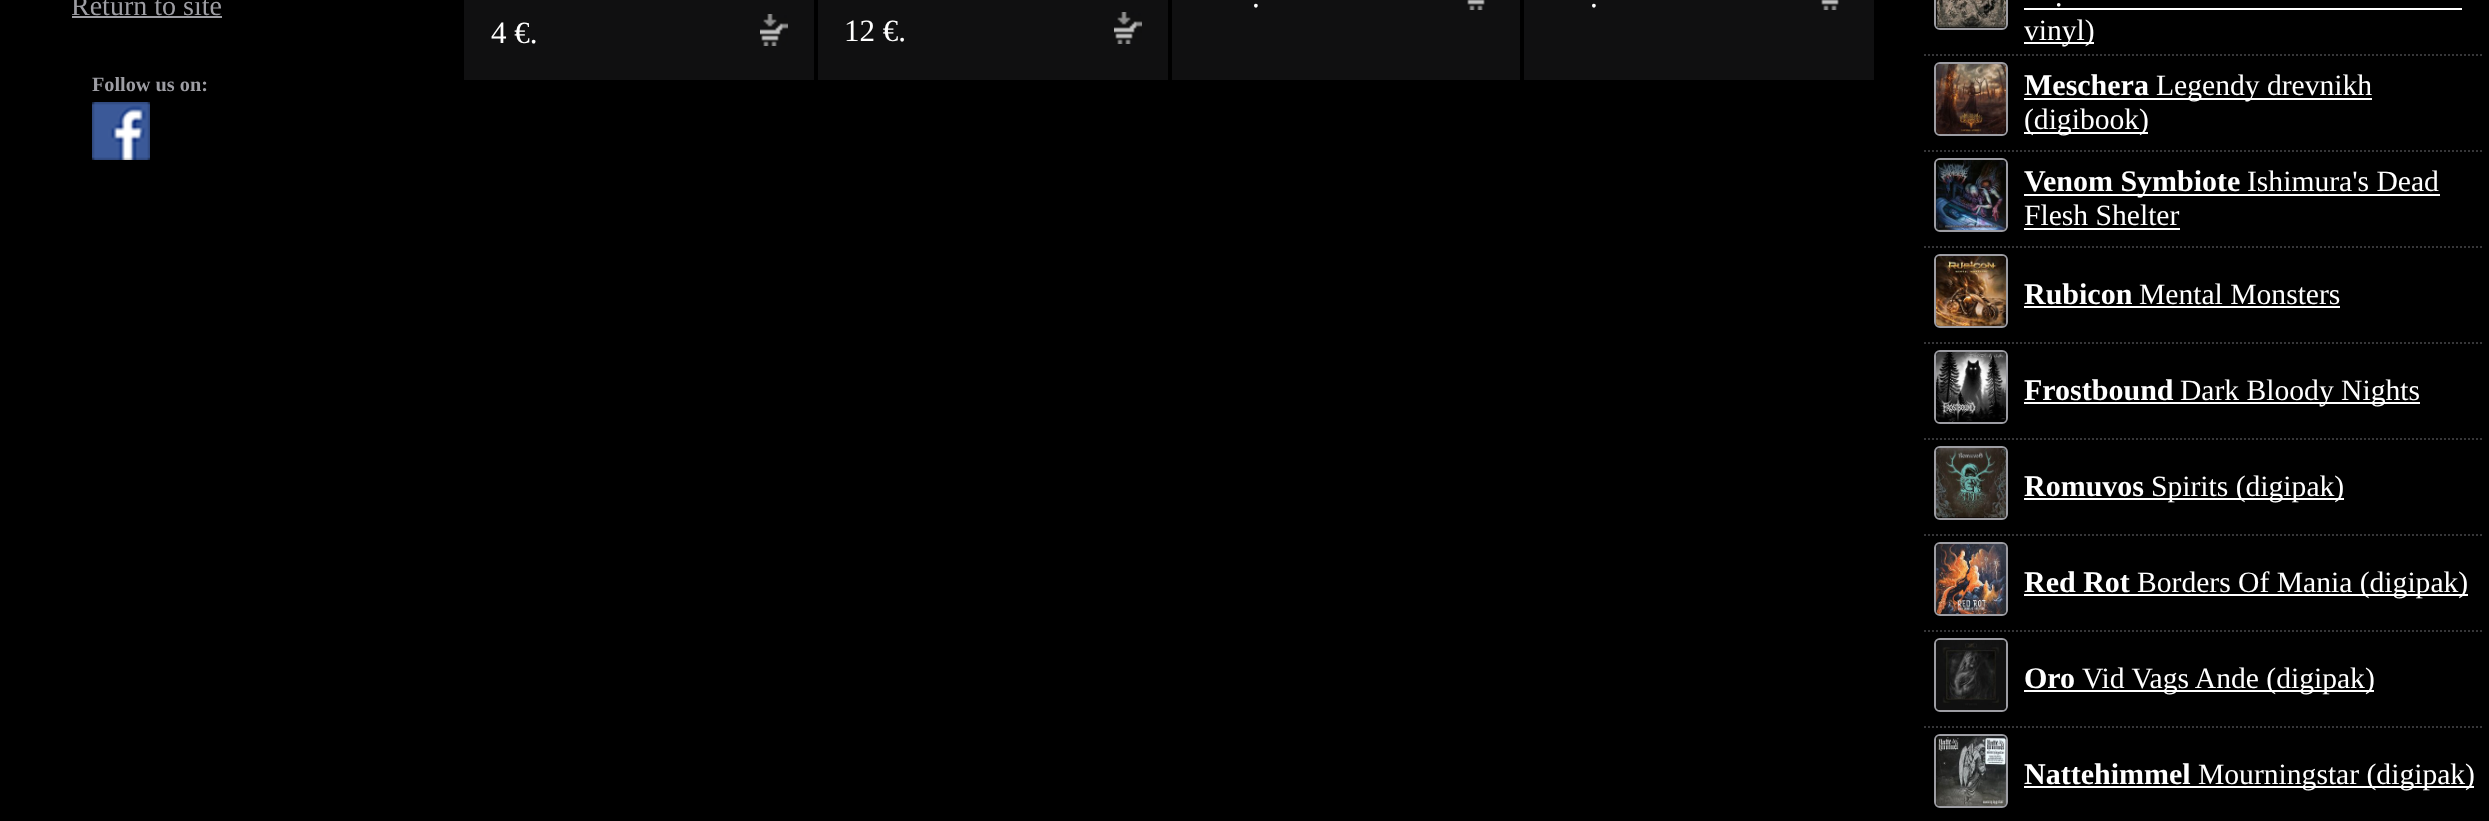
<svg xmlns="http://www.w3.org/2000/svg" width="2489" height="821">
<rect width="100%" height="100%" fill="#000"/>
<text x="71" y="15" style="font-family:Liberation Serif;font-size:28px;fill:#9d9da3">Return to site</text>
<rect x="72" y="16" width="150" height="2" fill="#9d9da3"/>
<text x="92" y="91" style="font-family:Liberation Serif;font-size:20.25px;font-weight:bold;fill:#9d9da3">Follow us on:</text>
<image x="92" y="102" width="58" height="58" href="media/1.png"/>
<rect x="1172" width="348" height="80" fill="#101011"/>
<text x="1252" y="7" style="font-family:Liberation Serif;font-size:31px;fill:#fff">.</text>
<image x="1467" y="0" width="18" height="10" href="media/2.png"/>
<rect x="1524" width="350" height="80" fill="#101011"/>
<text x="1590" y="7" style="font-family:Liberation Serif;font-size:31px;fill:#fff">.</text>
<image x="1821" y="0" width="18" height="10" href="media/2.png"/>
<rect x="464" width="350" height="80" fill="#101011"/>
<text x="491" y="43" style="font-family:Liberation Serif;font-size:31px;fill:#fff">4 €.</text>
<image x="760" y="14" width="28" height="32" href="media/3.png"/>
<rect x="818" width="350" height="80" fill="#101011"/>
<text x="844" y="41" style="font-family:Liberation Serif;font-size:31px;fill:#fff">12 €.</text>
<image x="1114" y="12" width="28" height="32" href="media/3.png"/>
<path d="M1924 55h560" fill="none" stroke="#363638" stroke-width="2" stroke-dasharray="2 2"/>
<rect x="1935" y="-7" width="72" height="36" rx="5" fill="none" stroke="#9d9da3" stroke-width="2"/>
<image x="1936" y="0" width="70" height="28" href="media/4.png"/>
<text x="2055" y="6" style="font-family:Liberation Serif;font-size:29.6px;fill:#fff">.</text>
<rect x="2024" y="8" width="438" height="2" fill="#fff"/>
<rect x="2024" y="42" width="70" height="2" fill="#fff"/>
<text x="2024" y="40" style="font-family:Liberation Serif;font-size:29.6px;fill:#fff">vinyl)</text>
<path d="M1924 151h560" fill="none" stroke="#363638" stroke-width="2" stroke-dasharray="2 2"/>
<rect x="1935" y="63" width="72" height="72" rx="5" fill="none" stroke="#9d9da3" stroke-width="2"/>
<image x="1936" y="64" width="70" height="70" href="media/5.png"/>
<text x="2024" y="95" style="font-family:Liberation Serif;font-size:30px;font-weight:bold;fill:#fff">Meschera</text>
<rect x="2024" y="98" width="348" height="2" fill="#fff"/>
<text x="2156" y="95" style="font-family:Liberation Serif;font-size:29.6px;fill:#fff">Legendy drevnikh</text>
<rect x="2024" y="132" width="124" height="2" fill="#fff"/>
<text x="2024" y="129" style="font-family:Liberation Serif;font-size:29.6px;fill:#fff">(digibook)</text>
<path d="M1924 247h560" fill="none" stroke="#363638" stroke-width="2" stroke-dasharray="2 2"/>
<rect x="1935" y="159" width="72" height="72" rx="5" fill="none" stroke="#9d9da3" stroke-width="2"/>
<image x="1936" y="160" width="70" height="70" href="media/6.png"/>
<rect x="2024" y="194" width="416" height="2" fill="#fff"/>
<text x="2024" y="191" style="font-family:Liberation Serif;font-size:30px;font-weight:bold;fill:#fff">Venom Symbiote</text>
<text x="2247" y="191" style="font-family:Liberation Serif;font-size:29.6px;fill:#fff">Ishimura's Dead</text>
<text x="2024" y="225" style="font-family:Liberation Serif;font-size:29.6px;fill:#fff">Flesh Shelter</text>
<rect x="2024" y="228" width="156" height="2" fill="#fff"/>
<path d="M1924 343h560" fill="none" stroke="#363638" stroke-width="2" stroke-dasharray="2 2"/>
<rect x="1935" y="255" width="72" height="72" rx="5" fill="none" stroke="#9d9da3" stroke-width="2"/>
<image x="1936" y="256" width="70" height="70" href="media/7.png"/>
<text x="2024" y="304" style="font-family:Liberation Serif;font-size:30px;font-weight:bold;fill:#fff">Rubicon</text>
<rect x="2024" y="306" width="316" height="2" fill="#fff"/>
<text x="2139" y="304" style="font-family:Liberation Serif;font-size:29.6px;fill:#fff">Mental Monsters</text>
<path d="M1924 439h560" fill="none" stroke="#363638" stroke-width="2" stroke-dasharray="2 2"/>
<rect x="1935" y="351" width="72" height="72" rx="5" fill="none" stroke="#9d9da3" stroke-width="2"/>
<image x="1936" y="352" width="70" height="70" href="media/8.png"/>
<text x="2024" y="400" style="font-family:Liberation Serif;font-size:30px;font-weight:bold;fill:#fff">Frostbound</text>
<rect x="2024" y="402" width="396" height="2" fill="#fff"/>
<text x="2180" y="400" style="font-family:Liberation Serif;font-size:29.6px;fill:#fff">Dark Bloody Nights</text>
<path d="M1924 535h560" fill="none" stroke="#363638" stroke-width="2" stroke-dasharray="2 2"/>
<rect x="1935" y="447" width="72" height="72" rx="5" fill="none" stroke="#9d9da3" stroke-width="2"/>
<image x="1936" y="448" width="70" height="70" href="media/9.png"/>
<text x="2024" y="496" style="font-family:Liberation Serif;font-size:30px;font-weight:bold;fill:#fff">Romuvos</text>
<rect x="2024" y="498" width="320" height="2" fill="#fff"/>
<text x="2151" y="496" style="font-family:Liberation Serif;font-size:29.6px;fill:#fff">Spirits (digipak)</text>
<path d="M1924 631h560" fill="none" stroke="#363638" stroke-width="2" stroke-dasharray="2 2"/>
<rect x="1935" y="543" width="72" height="72" rx="5" fill="none" stroke="#9d9da3" stroke-width="2"/>
<image x="1936" y="544" width="70" height="70" href="media/10.png"/>
<text x="2024" y="592" style="font-family:Liberation Serif;font-size:30px;font-weight:bold;fill:#fff">Red Rot</text>
<rect x="2024" y="594" width="444" height="2" fill="#fff"/>
<text x="2137" y="592" style="font-family:Liberation Serif;font-size:29.6px;fill:#fff">Borders Of Mania (digipak)</text>
<path d="M1924 727h560" fill="none" stroke="#363638" stroke-width="2" stroke-dasharray="2 2"/>
<rect x="1935" y="639" width="72" height="72" rx="5" fill="none" stroke="#9d9da3" stroke-width="2"/>
<image x="1936" y="640" width="70" height="70" href="media/11.png"/>
<text x="2024" y="688" style="font-family:Liberation Serif;font-size:30px;font-weight:bold;fill:#fff">Oro</text>
<rect x="2024" y="690" width="350" height="2" fill="#fff"/>
<text x="2082" y="688" style="font-family:Liberation Serif;font-size:29.6px;fill:#fff">Vid Vags Ande (digipak)</text>
<rect x="1935" y="735" width="72" height="72" rx="5" fill="none" stroke="#9d9da3" stroke-width="2"/>
<image x="1936" y="736" width="70" height="70" href="media/12.png"/>
<text x="2024" y="784" style="font-family:Liberation Serif;font-size:30px;font-weight:bold;fill:#fff">Nattehimmel</text>
<rect x="2024" y="786" width="450" height="2" fill="#fff"/>
<text x="2198" y="784" style="font-family:Liberation Serif;font-size:29.6px;fill:#fff">Mourningstar (digipak)</text>
</svg>
